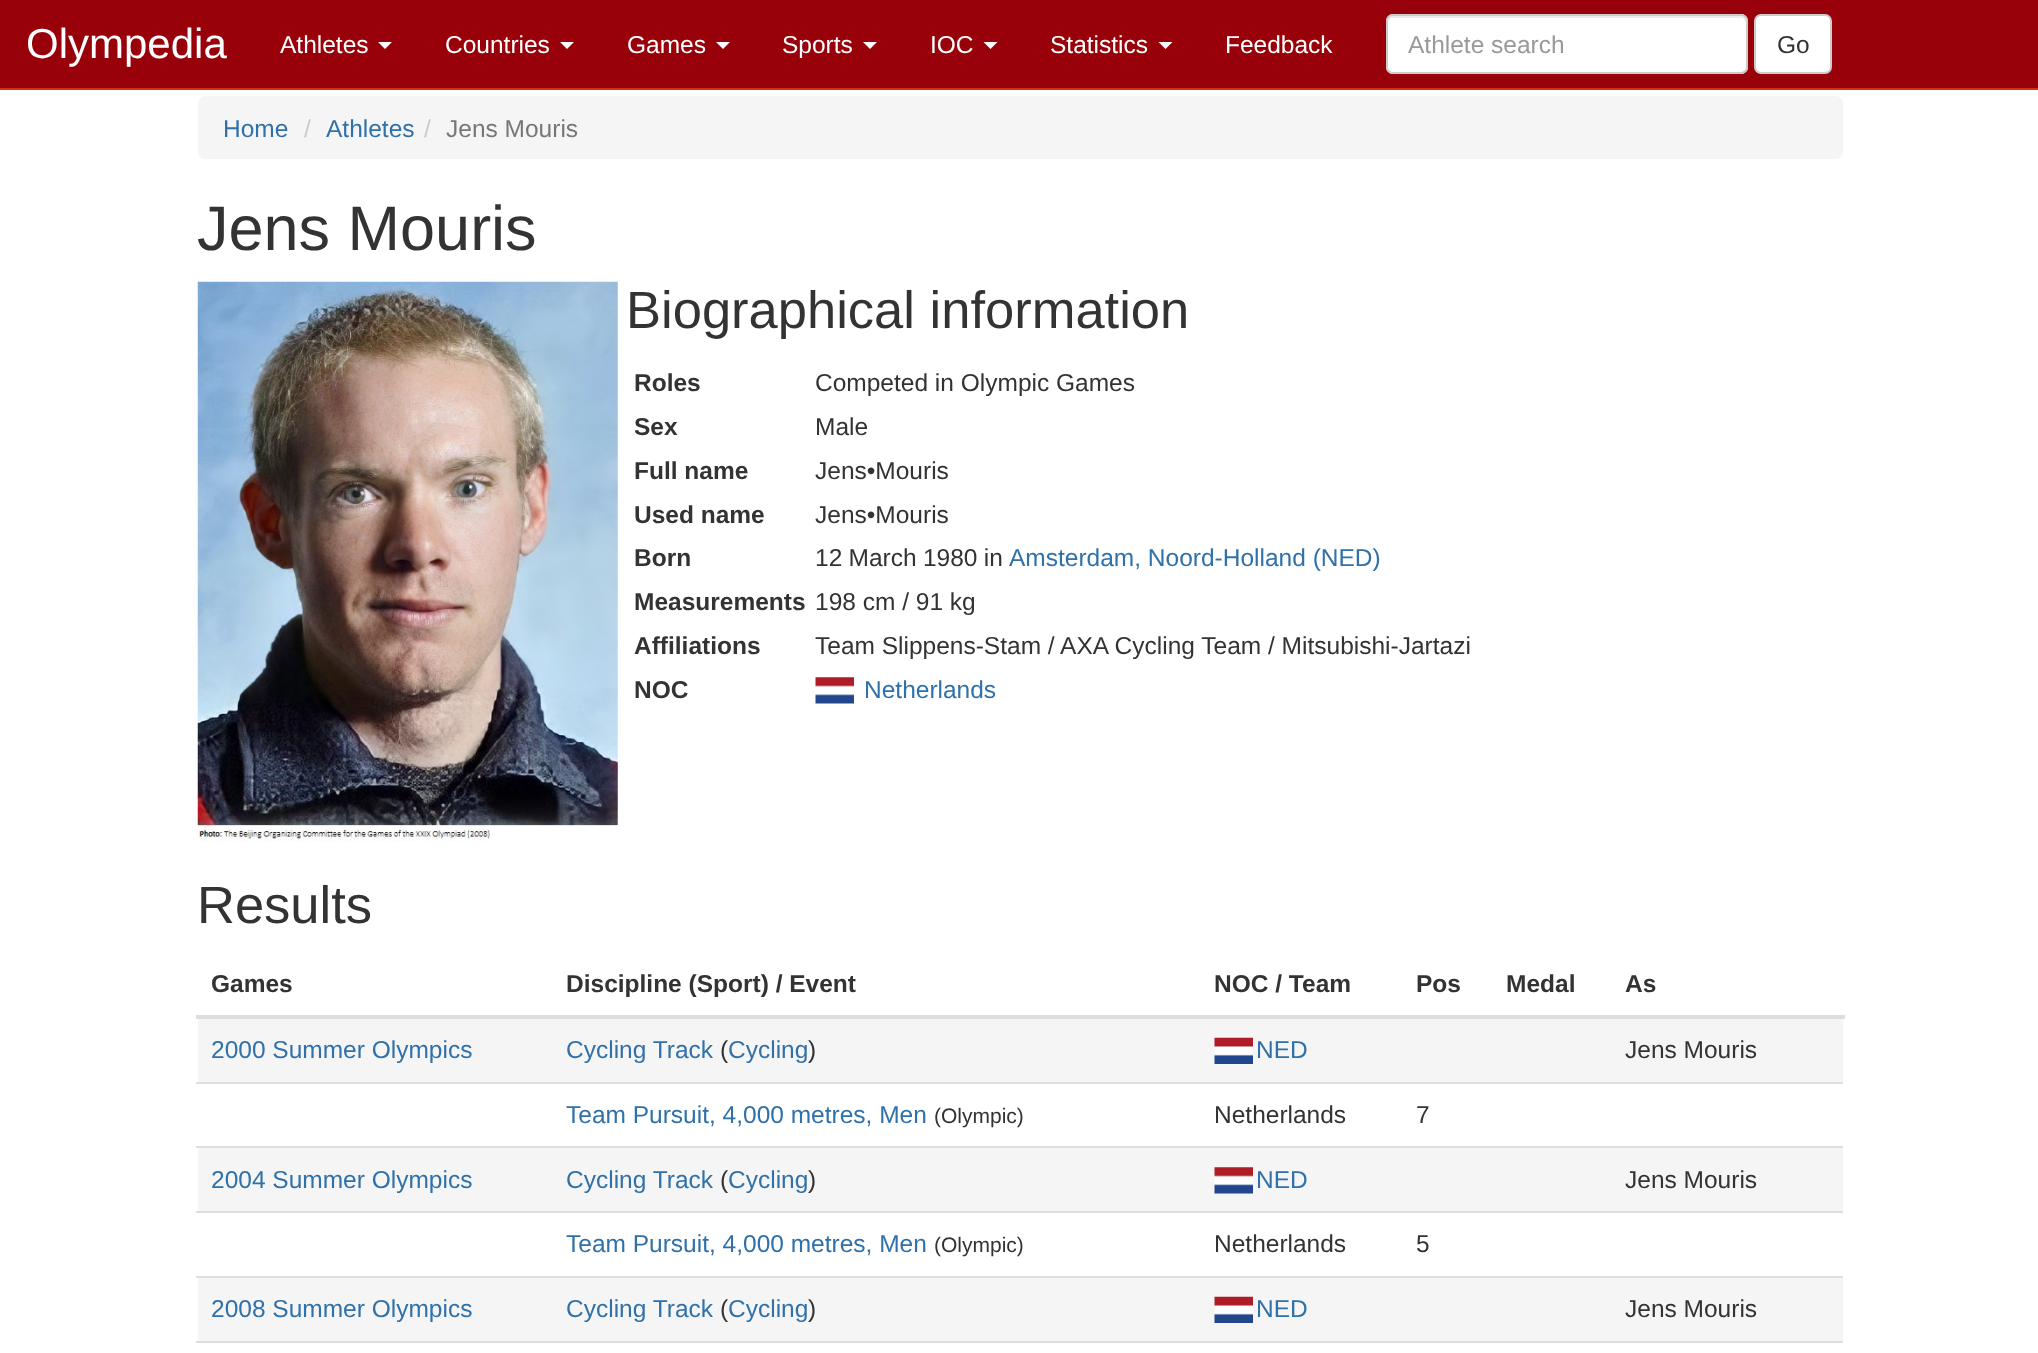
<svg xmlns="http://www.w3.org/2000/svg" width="2038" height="1353">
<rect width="100%" height="100%" fill="#fff"/>
<rect width="2038" height="88" fill="#98010a"/>
<rect y="88" width="2038" height="2" fill="#cc3314"/>
<text x="26" y="58" style="font-family:Liberation Sans;font-size:42px;fill:#fff">Olympedia</text>
<text x="280" y="53" style="font-family:Liberation Sans;font-size:24.5px;fill:#fff">Athletes</text>
<path d="M378 42h14l-7 7z" fill="#fff"/>
<text x="445" y="53" style="font-family:Liberation Sans;font-size:24.5px;fill:#fff">Countries</text>
<path d="M560 42h14l-7 7z" fill="#fff"/>
<text x="627" y="53" style="font-family:Liberation Sans;font-size:24.5px;fill:#fff">Games</text>
<path d="M716 42h14l-7 7z" fill="#fff"/>
<text x="782" y="53" style="font-family:Liberation Sans;font-size:24.5px;fill:#fff">Sports</text>
<path d="M863 42h14l-7 7z" fill="#fff"/>
<text x="930" y="53" style="font-family:Liberation Sans;font-size:24.5px;fill:#fff">IOC</text>
<path d="M983.5 42h14l-7 7z" fill="#fff"/>
<text x="1050" y="53" style="font-family:Liberation Sans;font-size:24.5px;fill:#fff">Statistics</text>
<path d="M1158.5 42h14l-7 7z" fill="#fff"/>
<text x="1225" y="53" style="font-family:Liberation Sans;font-size:24.5px;fill:#fff">Feedback</text>
<rect x="1386" y="14" width="362" height="60" rx="7" fill="#fff"/>
<path d="M1393 18h348c3 0 5 2 5 5v45v3c0-1 1-3 1-4v-46c0-3-2-5-5-5h-349c-3 0-5 2-5 5v2c0-3 2-5 5-5z" fill="#ececec"/>
<rect x="1387" y="15" width="360" height="58" rx="6" fill="none" stroke="#ccc" stroke-width="2"/>
<text x="1408" y="53" style="font-family:Liberation Sans;font-size:24.5px;fill:#999">Athlete search</text>
<rect x="1755" y="15" width="76" height="58" rx="6" fill="#fff" stroke="#ccc" stroke-width="2"/>
<text x="1777" y="53" style="font-family:Liberation Sans;font-size:24.5px;fill:#333">Go</text>
<rect x="198" y="96" width="1645" height="63" rx="7" fill="#f5f5f5"/>
<text x="223" y="137" style="font-family:Liberation Sans;font-size:24.5px;fill:#3071a9">Home</text>
<text x="304" y="137" style="font-family:Liberation Sans;font-size:24.5px;fill:#ccc">/</text>
<text x="326" y="137" style="font-family:Liberation Sans;font-size:24.5px;fill:#3071a9">Athletes</text>
<text x="424" y="137" style="font-family:Liberation Sans;font-size:24.5px;fill:#ccc">/</text>
<text x="446" y="137" style="font-family:Liberation Sans;font-size:24.5px;fill:#777">Jens Mouris</text>
<text x="197" y="250" style="font-family:Liberation Sans;font-size:63px;fill:#333">Jens Mouris</text>
<image x="197" y="281" width="421" height="561" href="media/1.png"/>
<text x="626" y="328" style="font-family:Liberation Sans;font-size:52.5px;fill:#333">Biographical information</text>
<text x="634" y="391" style="font-family:Liberation Sans;font-size:24.5px;font-weight:bold;fill:#333">Roles</text>
<text x="815" y="391" style="font-family:Liberation Sans;font-size:24.5px;fill:#333">Competed in Olympic Games</text>
<text x="634" y="435" style="font-family:Liberation Sans;font-size:24.5px;font-weight:bold;fill:#333">Sex</text>
<text x="815" y="435" style="font-family:Liberation Sans;font-size:24.5px;fill:#333">Male</text>
<text x="634" y="479" style="font-family:Liberation Sans;font-size:24.5px;font-weight:bold;fill:#333">Full name</text>
<text x="815" y="479" style="font-family:Liberation Sans;font-size:24.5px;fill:#333">Jens•Mouris</text>
<text x="634" y="523" style="font-family:Liberation Sans;font-size:24.5px;font-weight:bold;fill:#333">Used name</text>
<text x="815" y="523" style="font-family:Liberation Sans;font-size:24.5px;fill:#333">Jens•Mouris</text>
<text x="634" y="566" style="font-family:Liberation Sans;font-size:24.5px;font-weight:bold;fill:#333">Born</text>
<text x="815" y="566" word-spacing="-0.5" style="font-family:Liberation Sans;font-size:24.5px;fill:#333">12 March 1980 in</text>
<text x="1009" y="566" style="font-family:Liberation Sans;font-size:24.5px;fill:#3071a9">Amsterdam, Noord-Holland (NED)</text>
<text x="634" y="610" style="font-family:Liberation Sans;font-size:24.5px;font-weight:bold;fill:#333">Measurements</text>
<text x="815" y="610" style="font-family:Liberation Sans;font-size:24.5px;fill:#333">198 cm / 91 kg</text>
<text x="634" y="654" style="font-family:Liberation Sans;font-size:24.5px;font-weight:bold;fill:#333">Affiliations</text>
<text x="815" y="654" style="font-family:Liberation Sans;font-size:24.5px;fill:#333">Team Slippens-Stam / AXA Cycling Team / Mitsubishi-Jartazi</text>
<text x="634" y="698" style="font-family:Liberation Sans;font-size:24.5px;font-weight:bold;fill:#333">NOC</text>
<image x="815" y="677" width="39" height="27" href="media/2.png"/>
<text x="864" y="698" style="font-family:Liberation Sans;font-size:24.5px;fill:#3071a9">Netherlands</text>
<text x="197" y="923" style="font-family:Liberation Sans;font-size:52.5px;fill:#333">Results</text>
<text x="211" y="992" style="font-family:Liberation Sans;font-size:24.5px;font-weight:bold;fill:#333">Games</text>
<text x="566" y="992" style="font-family:Liberation Sans;font-size:24.5px;font-weight:bold;fill:#333">Discipline (Sport) / Event</text>
<text x="1214" y="992" style="font-family:Liberation Sans;font-size:24.5px;font-weight:bold;fill:#333">NOC / Team</text>
<text x="1416" y="992" style="font-family:Liberation Sans;font-size:24.5px;font-weight:bold;fill:#333">Pos</text>
<text x="1506" y="992" style="font-family:Liberation Sans;font-size:24.5px;font-weight:bold;fill:#333">Medal</text>
<text x="1625" y="992" style="font-family:Liberation Sans;font-size:24.5px;font-weight:bold;fill:#333">As</text>
<rect x="196" y="1015" width="1649" height="4" fill="#ddd"/>
<rect x="198" y="1019" width="1645" height="63" fill="#f5f5f5"/>
<text x="211" y="1058" style="font-family:Liberation Sans;font-size:24.5px;fill:#3071a9">2000 Summer Olympics</text>
<text x="566" y="1058" style="font-family:Liberation Sans;font-size:24.5px;fill:#3071a9">Cycling Track</text>
<text x="720" y="1058" style="font-family:Liberation Sans;font-size:24.5px;fill:#333">(</text>
<text x="728" y="1058" style="font-family:Liberation Sans;font-size:24.5px;fill:#3071a9">Cycling</text>
<text x="808" y="1058" style="font-family:Liberation Sans;font-size:24.5px;fill:#333">)</text>
<image x="1214" y="1037" width="39" height="27" href="media/3.png"/>
<text x="1256" y="1058" style="font-family:Liberation Sans;font-size:24.5px;fill:#3071a9">NED</text>
<text x="1625" y="1058" style="font-family:Liberation Sans;font-size:24.5px;fill:#333">Jens Mouris</text>
<rect x="196" y="1082" width="1647" height="2" fill="#ddd"/>
<text x="566" y="1123" style="font-family:Liberation Sans;font-size:24.5px;fill:#3071a9">Team Pursuit, 4,000 metres, Men</text>
<text x="934" y="1123" style="font-family:Liberation Sans;font-size:21px;fill:#333">(Olympic)</text>
<text x="1214" y="1123" style="font-family:Liberation Sans;font-size:24.5px;fill:#333">Netherlands</text>
<text x="1416" y="1123" style="font-family:Liberation Sans;font-size:24.5px;fill:#333">7</text>
<rect x="196" y="1146" width="1647" height="2" fill="#ddd"/>
<rect x="198" y="1148" width="1645" height="63" fill="#f5f5f5"/>
<text x="211" y="1188" style="font-family:Liberation Sans;font-size:24.5px;fill:#3071a9">2004 Summer Olympics</text>
<text x="566" y="1188" style="font-family:Liberation Sans;font-size:24.5px;fill:#3071a9">Cycling Track</text>
<text x="720" y="1188" style="font-family:Liberation Sans;font-size:24.5px;fill:#333">(</text>
<text x="728" y="1188" style="font-family:Liberation Sans;font-size:24.5px;fill:#3071a9">Cycling</text>
<text x="808" y="1188" style="font-family:Liberation Sans;font-size:24.5px;fill:#333">)</text>
<image x="1214" y="1167" width="39" height="27" href="media/4.png"/>
<text x="1256" y="1188" style="font-family:Liberation Sans;font-size:24.5px;fill:#3071a9">NED</text>
<text x="1625" y="1188" style="font-family:Liberation Sans;font-size:24.5px;fill:#333">Jens Mouris</text>
<rect x="196" y="1211" width="1647" height="2" fill="#ddd"/>
<text x="566" y="1252" style="font-family:Liberation Sans;font-size:24.5px;fill:#3071a9">Team Pursuit, 4,000 metres, Men</text>
<text x="934" y="1252" style="font-family:Liberation Sans;font-size:21px;fill:#333">(Olympic)</text>
<text x="1214" y="1252" style="font-family:Liberation Sans;font-size:24.5px;fill:#333">Netherlands</text>
<text x="1416" y="1252" style="font-family:Liberation Sans;font-size:24.5px;fill:#333">5</text>
<rect x="196" y="1276" width="1647" height="2" fill="#ddd"/>
<rect x="198" y="1278" width="1645" height="63" fill="#f5f5f5"/>
<text x="211" y="1317" style="font-family:Liberation Sans;font-size:24.5px;fill:#3071a9">2008 Summer Olympics</text>
<text x="566" y="1317" style="font-family:Liberation Sans;font-size:24.5px;fill:#3071a9">Cycling Track</text>
<text x="720" y="1317" style="font-family:Liberation Sans;font-size:24.5px;fill:#333">(</text>
<text x="728" y="1317" style="font-family:Liberation Sans;font-size:24.5px;fill:#3071a9">Cycling</text>
<text x="808" y="1317" style="font-family:Liberation Sans;font-size:24.5px;fill:#333">)</text>
<image x="1214" y="1296" width="39" height="27" href="media/3.png"/>
<text x="1256" y="1317" style="font-family:Liberation Sans;font-size:24.5px;fill:#3071a9">NED</text>
<text x="1625" y="1317" style="font-family:Liberation Sans;font-size:24.5px;fill:#333">Jens Mouris</text>
<rect x="196" y="1341" width="1647" height="2" fill="#ddd"/>
</svg>
